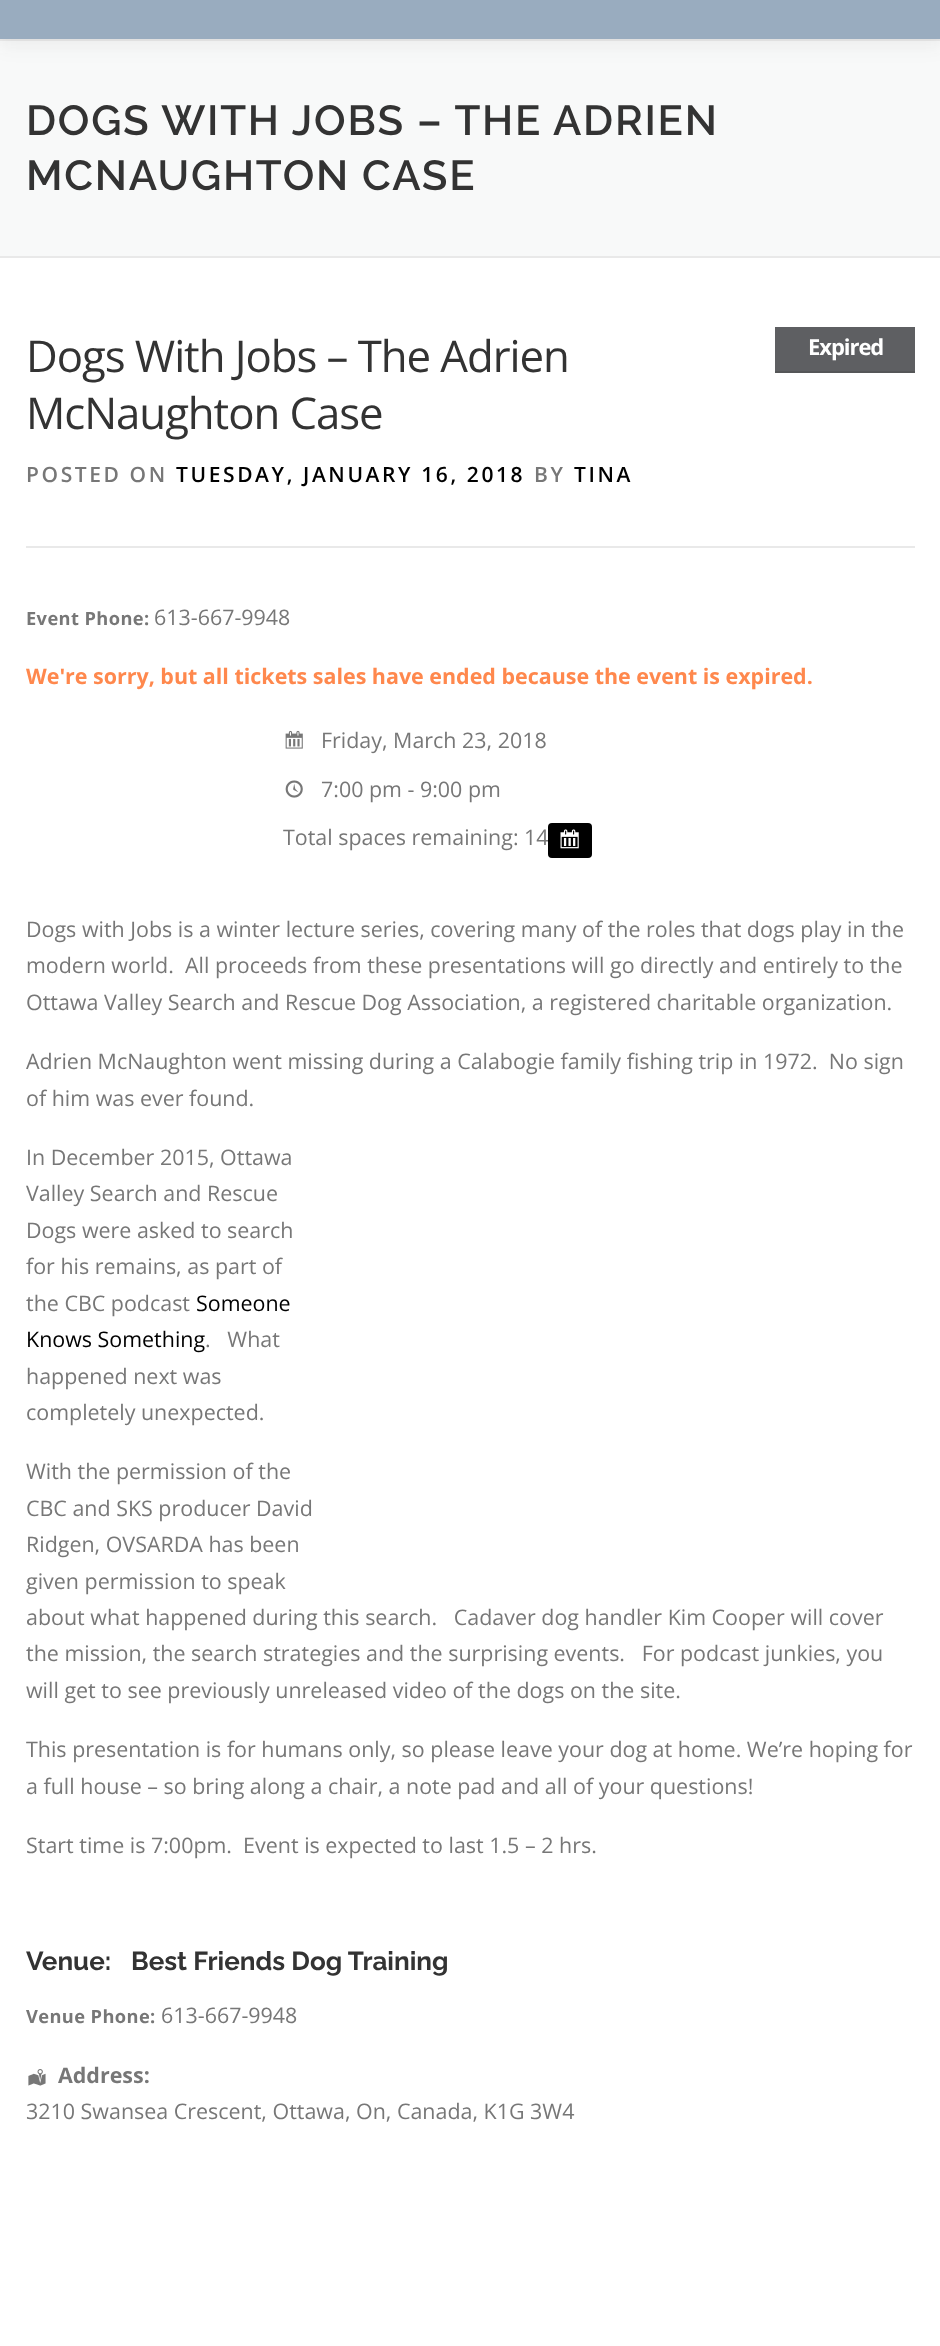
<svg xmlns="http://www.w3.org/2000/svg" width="940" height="2346">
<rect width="100%" height="100%" fill="#fff"/>
<rect y="41" width="940" height="215" fill="#f8f9f9"/>
<rect y="39" width="940" height="2" fill="#e9e9e9"/>
<rect y="-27" width="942" height="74" fill="#3232320f" filter="blur(9px)"/>
<rect width="940" height="39" fill="#99acbf"/>
<rect y="256" width="940" height="2" fill="#e9e9e9"/>
<text x="26" y="135" style="font-family:Raleway;font-size:42px;font-weight:600;letter-spacing:1.75px;fill:#333">DOGS WITH JOBS – THE ADRIEN</text>
<text x="26" y="190" style="font-family:Raleway;font-size:42px;font-weight:600;letter-spacing:1.75px;fill:#333">MCNAUGHTON CASE</text>
<text x="26" y="372" style="font-family:Open Sans;font-size:43.75px;letter-spacing:-1.05px;fill:#333">Dogs With Jobs – The Adrien</text>
<rect x="775" y="327" width="140" height="44" fill="#5e5f62"/>
<rect x="775" y="371" width="140" height="2" fill="#555658"/>
<text x="808" y="355" style="font-family:Open Sans;font-size:22px;font-weight:bold;letter-spacing:-1.05px;fill:#fff">Expired</text>
<text x="26" y="429" style="font-family:Open Sans;font-size:43.75px;letter-spacing:-1.05px;fill:#333">McNaughton Case</text>
<rect x="26" y="546" width="889" height="2" fill="#e9e9e9"/>
<text x="26" y="482" style="font-family:Open Sans;font-size:21px;font-weight:600;letter-spacing:2.6px;fill:#777">POSTED ON</text>
<text x="176" y="482" style="font-family:Open Sans;font-size:21px;font-weight:600;letter-spacing:2.6px;fill:#000">TUESDAY, JANUARY 16, 2018</text>
<text x="534" y="482" style="font-family:Open Sans;font-size:21px;font-weight:600;letter-spacing:2.6px;fill:#777">BY</text>
<text x="574" y="482" style="font-family:Open Sans;font-size:21px;font-weight:600;letter-spacing:2.6px;fill:#000">TINA</text>
<text x="26" y="625" style="font-family:Open Sans;font-size:18.25px;font-weight:bold;letter-spacing:0.4px;fill:#777">Event Phone:</text>
<text x="154" y="625" style="font-family:Open Sans;font-size:21.45px;fill:#777">613-667-9948</text>
<text x="26" y="684" style="font-family:Open Sans;font-size:21.45px;font-weight:bold;fill:#ff884d">We're sorry, but all tickets sales have ended because the event is expired.</text>
<image x="285" y="730" width="18" height="19" href="media/1.png"/>
<text x="321" y="748" style="font-family:Open Sans;font-size:21.45px;fill:#777">Friday, March 23, 2018</text>
<image x="285" y="780" width="18" height="18" href="media/2.png"/>
<text x="321" y="797" style="font-family:Open Sans;font-size:21.45px;fill:#777">7:00 pm - 9:00 pm</text>
<text x="283" y="845" style="font-family:Open Sans;font-size:21.45px;fill:#777">Total spaces remaining: 14</text>
<rect x="548" y="823" width="44" height="35" rx="4" fill="#000"/>
<path d="M548 852c0 7 4 6 10 6h24c6 0 10 1 10-6c0 2-2 4-4 4h-37c-2 0-3-2-3-4z" fill="#0000001a"/>
<image x="560" y="829" width="19" height="20" href="media/3.png"/>
<text x="26" y="937" style="font-family:Open Sans;font-size:21.45px;fill:#777">Dogs with Jobs is a winter lecture series, covering many of the roles that dogs play in the</text>
<text x="26" y="973" style="font-family:Open Sans;font-size:21.45px;fill:#777" xml:space="preserve">modern world.  All proceeds from these presentations will go directly and entirely to the</text>
<text x="26" y="1010" style="font-family:Open Sans;font-size:21.45px;fill:#777">Ottawa Valley Search and Rescue Dog Association, a registered charitable organization.</text>
<text x="26" y="1069" style="font-family:Open Sans;font-size:21.45px;fill:#777" xml:space="preserve">Adrien McNaughton went missing during a Calabogie family fishing trip in 1972.  No sign</text>
<text x="26" y="1106" style="font-family:Open Sans;font-size:21.45px;fill:#777">of him was ever found.</text>
<text x="26" y="1165" style="font-family:Open Sans;font-size:21.45px;fill:#777">In December 2015, Ottawa</text>
<text x="26" y="1201" style="font-family:Open Sans;font-size:21.45px;fill:#777">Valley Search and Rescue</text>
<text x="26" y="1238" style="font-family:Open Sans;font-size:21.45px;fill:#777">Dogs were asked to search</text>
<text x="26" y="1274" style="font-family:Open Sans;font-size:21.45px;fill:#777">for his remains, as part of</text>
<text x="26" y="1311" style="font-family:Open Sans;font-size:21.45px;fill:#777">the CBC podcast</text>
<text x="196" y="1311" style="font-family:Open Sans;font-size:21.45px;fill:#000">Someone</text>
<text x="26" y="1347" style="font-family:Open Sans;font-size:21.45px;fill:#000">Knows Something</text>
<text x="205" y="1347" style="font-family:Open Sans;font-size:21.45px;fill:#777" xml:space="preserve">.   What</text>
<text x="26" y="1384" style="font-family:Open Sans;font-size:21.45px;fill:#777">happened next was</text>
<text x="26" y="1420" style="font-family:Open Sans;font-size:21.45px;fill:#777">completely unexpected.</text>
<text x="26" y="1479" style="font-family:Open Sans;font-size:21.45px;fill:#777">With the permission of the</text>
<text x="26" y="1516" style="font-family:Open Sans;font-size:21.45px;fill:#777">CBC and SKS producer David</text>
<text x="26" y="1552" style="font-family:Open Sans;font-size:21.45px;fill:#777">Ridgen, OVSARDA has been</text>
<text x="26" y="1589" style="font-family:Open Sans;font-size:21.45px;fill:#777">given permission to speak</text>
<text x="26" y="1625" style="font-family:Open Sans;font-size:21.45px;fill:#777" xml:space="preserve">about what happened during this search.   Cadaver dog handler Kim Cooper will cover</text>
<text x="26" y="1661" style="font-family:Open Sans;font-size:21.45px;fill:#777" xml:space="preserve">the mission, the search strategies and the surprising events.   For podcast junkies, you</text>
<text x="26" y="1698" style="font-family:Open Sans;font-size:21.45px;fill:#777">will get to see previously unreleased video of the dogs on the site.</text>
<text x="26" y="1757" style="font-family:Open Sans;font-size:21.45px;fill:#777">This presentation is for humans only, so please leave your dog at home. We’re hoping for</text>
<text x="26" y="1794" style="font-family:Open Sans;font-size:21.45px;fill:#777">a full house – so bring along a chair, a note pad and all of your questions!</text>
<text x="26" y="1853" style="font-family:Open Sans;font-size:21.45px;fill:#777" xml:space="preserve">Start time is 7:00pm.  Event is expected to last 1.5 – 2 hrs.</text>
<text x="26" y="1970" style="font-family:Raleway;font-size:26px;font-weight:bold;fill:#333">Venue:</text>
<text x="131" y="1970" style="font-family:Raleway;font-size:26px;font-weight:bold;fill:#333">Best Friends Dog Training</text>
<text x="26" y="2023" style="font-family:Open Sans;font-size:18.25px;font-weight:bold;letter-spacing:0.4px;fill:#777">Venue Phone:</text>
<text x="161" y="2023" style="font-family:Open Sans;font-size:21.45px;fill:#777">613-667-9948</text>
<image x="28" y="2069" width="18" height="17" href="media/4.png"/>
<text x="58" y="2083" style="font-family:Open Sans;font-size:21.45px;font-weight:bold;fill:#777">Address:</text>
<text x="26" y="2119" style="font-family:Open Sans;font-size:21.45px;fill:#777">3210 Swansea Crescent, Ottawa, On, Canada, K1G 3W4</text>
</svg>
